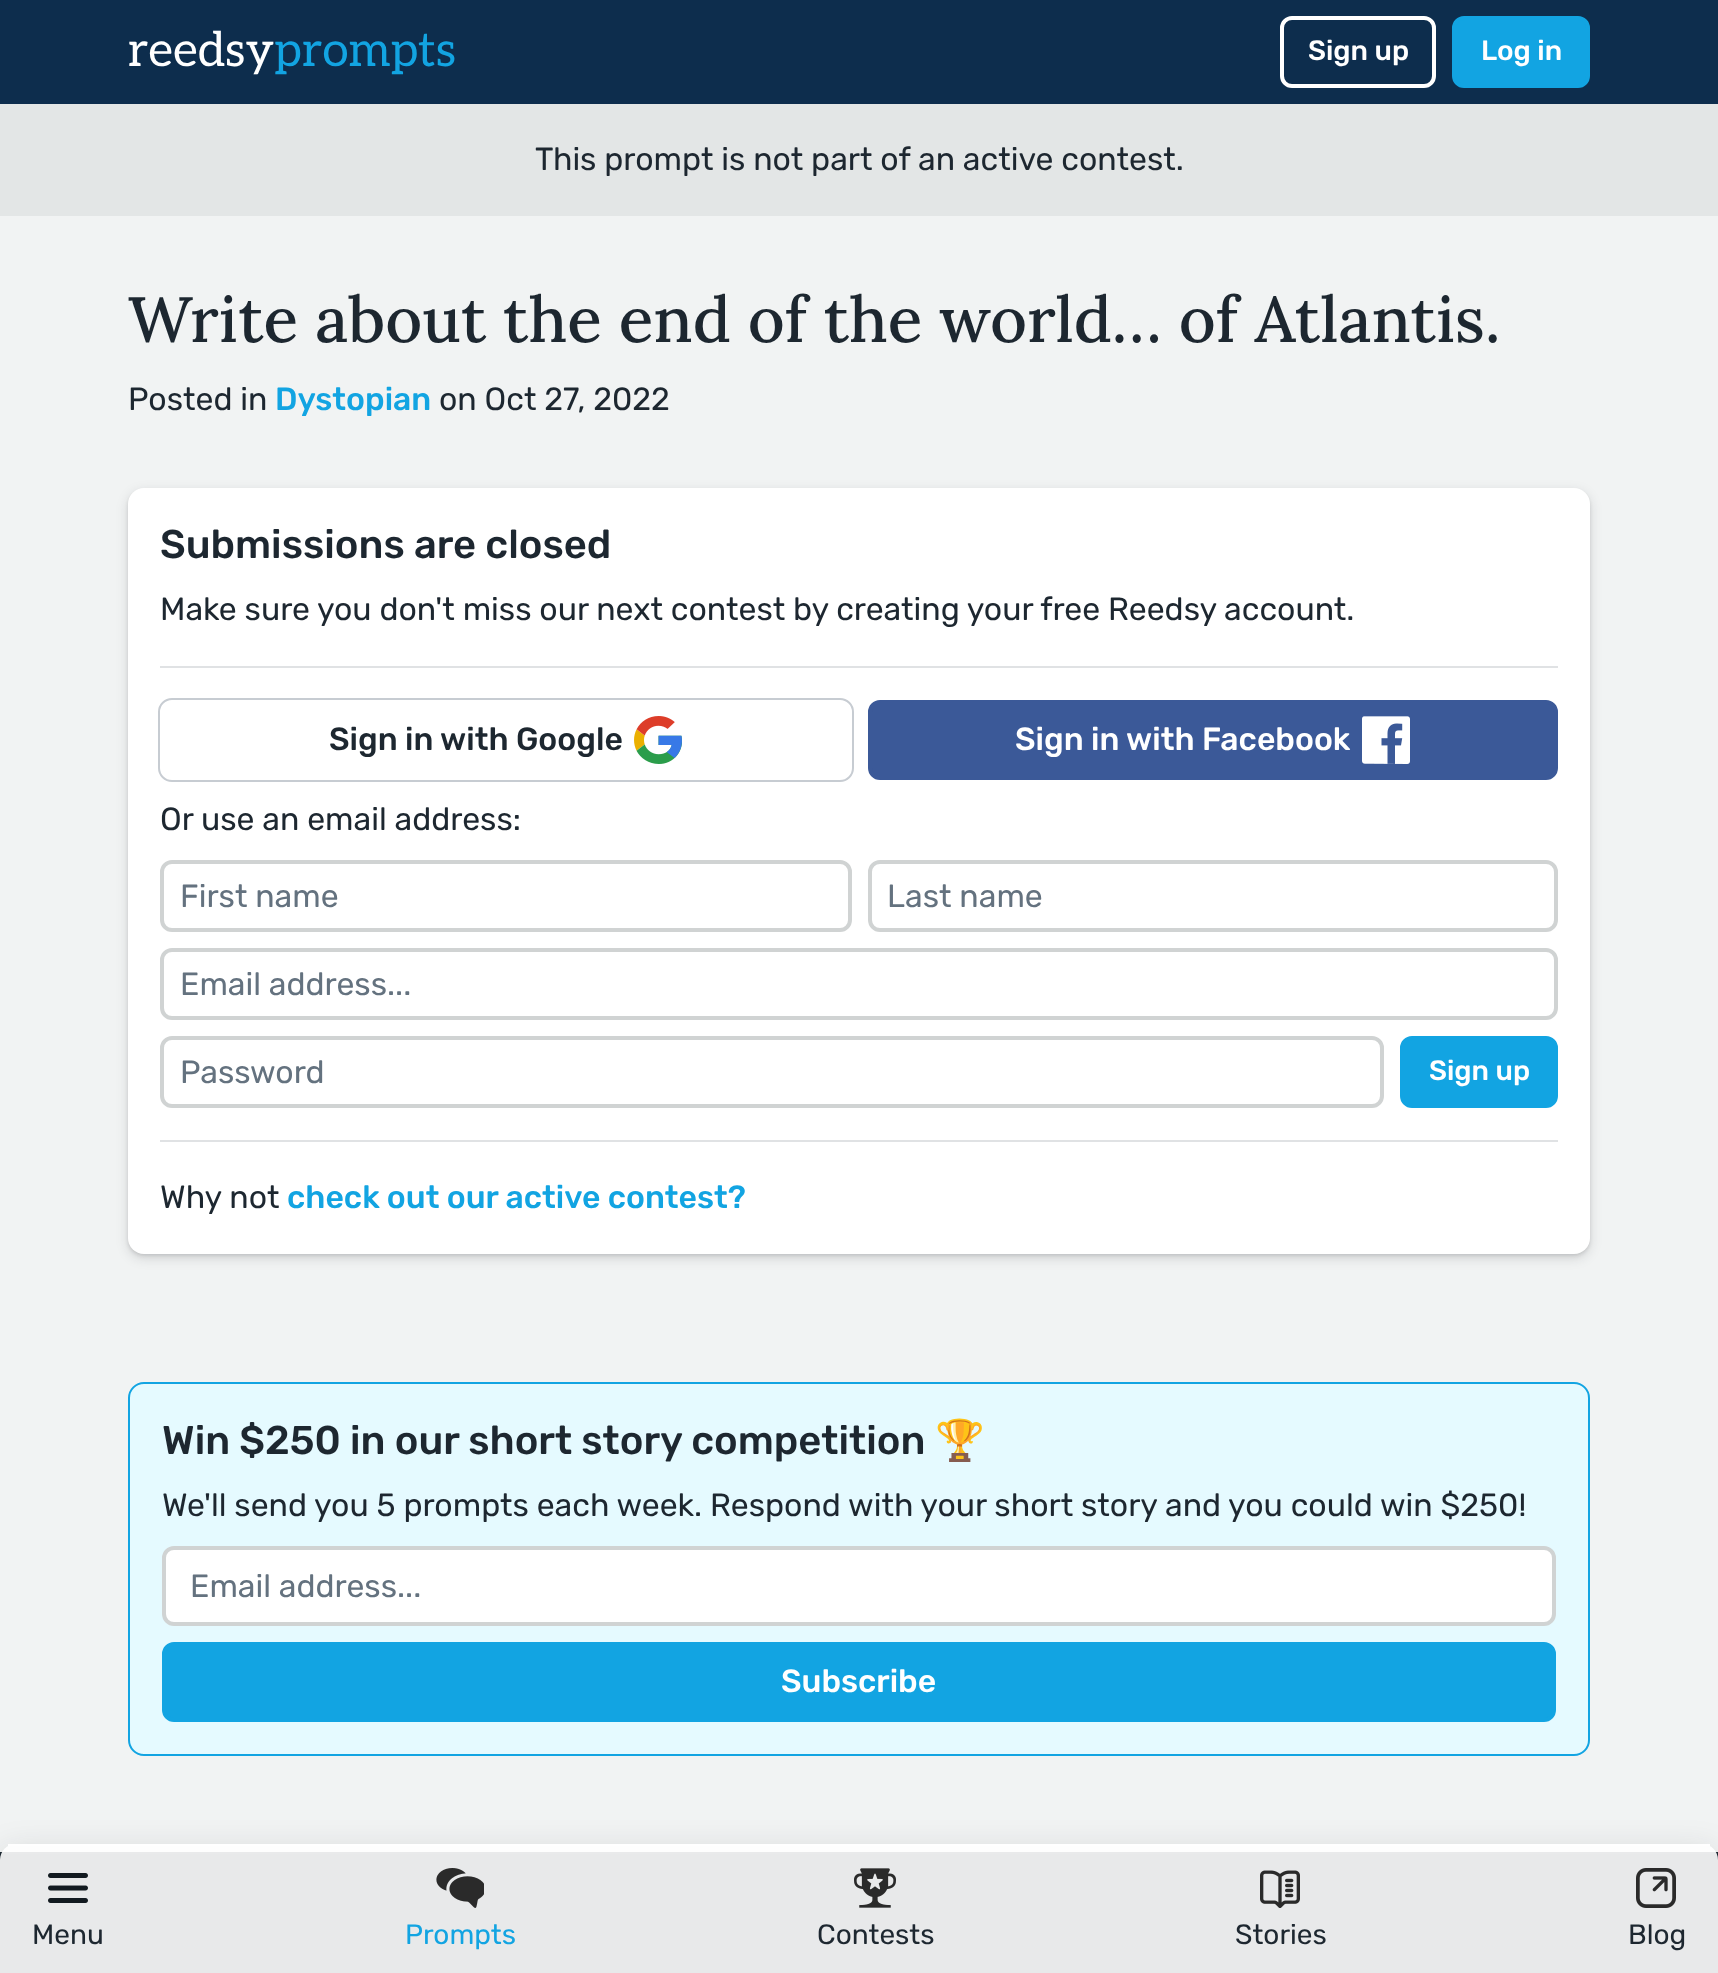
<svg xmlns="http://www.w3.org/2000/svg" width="1718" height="1973">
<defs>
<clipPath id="clip1"><path d="M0 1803h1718v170h-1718zm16 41h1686c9 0 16 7 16 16v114h-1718v-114c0-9 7-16 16-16z" clip-rule="evenodd"/></clipPath>
</defs>
<rect width="100%" height="100%" fill="#0d2d4d"/>
<text x="128" y="66" style="font-family:Aleo;font-size:48px;fill:#fff">reedsy</text>
<text x="274" y="66" style="font-family:Aleo;font-size:48px;fill:#12a4e2">prompts</text>
<rect x="1282" y="18" width="152" height="68" rx="10" fill="none" stroke="#fff" stroke-width="4"/>
<text x="1308" y="60" style="font-family:Rubik;font-size:28px;font-weight:500;fill:#fff">Sign up</text>
<rect x="1454" y="18" width="134" height="68" rx="10" fill="#12a4e2" stroke="#12a4e2" stroke-width="4"/>
<text x="1481" y="60" style="font-family:Rubik;font-size:28px;font-weight:500;fill:#fff">Log in</text>
<rect y="216" width="1718" height="1636" fill="#f1f3f3"/>
<rect y="1854" width="1718" height="119" fill="#1d2730"/>
<rect y="1852" width="1718" height="2" fill="#202b34"/>
<g clip-path="url(#clip1)">
<rect y="1852" width="1718" height="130" rx="16" fill="#11111a26" filter="blur(16px)"/>
</g>
<path d="M16 1844h1686c9 0 16 7 16 16v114h-1718v-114c0-9 7-16 16-16z" fill="#ffffffe6"/>
<rect x="8" y="1844" width="1702" height="2" fill="#fff"/>
<image x="48" y="1873" width="40" height="30" href="media/1.png"/>
<text x="32" y="1944" style="font-family:Rubik;font-size:28px;fill:#1d2730">Menu</text>
<image x="436" y="1868" width="48" height="40" href="media/2.png"/>
<text x="405" y="1944" style="font-family:Rubik;font-size:28px;fill:#12a4e2">Prompts</text>
<image x="854" y="1868" width="42" height="40" href="media/3.png"/>
<text x="817" y="1944" style="font-family:Rubik;font-size:28px;fill:#1d2730">Contests</text>
<image x="1260" y="1870" width="40" height="38" href="media/4.png"/>
<text x="1235" y="1944" style="font-family:Rubik;font-size:28px;fill:#1d2730">Stories</text>
<image x="1636" y="1868" width="40" height="40" href="media/5.png"/>
<text x="1628" y="1944" style="font-family:Rubik;font-size:28px;fill:#1d2730">Blog</text>
<rect y="104" width="1718" height="112" fill="#e3e6e6"/>
<text x="535" y="170" style="font-family:Rubik;font-size:32px;fill:#1d2730">This prompt is not part of an active contest.</text>
<text x="128" y="342" style="font-family:Lora;font-size:64px;font-weight:500;fill:#1d2730">Write about the end of the world… of Atlantis.</text>
<text x="128" y="410" style="font-family:Rubik;font-size:32px;fill:#1d2730">Posted in</text>
<text x="275" y="410" style="font-family:Rubik;font-size:32px;font-weight:500;fill:#12a4e2">Dystopian</text>
<text x="439" y="410" style="font-family:Rubik;font-size:32px;fill:#1d2730">on Oct 27, 2022</text>
<rect x="128" y="492" width="1462" height="766" rx="16" fill="#11111a26" filter="blur(6px)"/>
<rect x="128" y="490" width="1462" height="766" rx="16" fill="#11111a1a" filter="blur(1.5px)"/>
<rect x="128" y="488" width="1462" height="766" rx="16" fill="#fff"/>
<text x="160" y="558" style="font-family:Rubik;font-size:40px;font-weight:500;fill:#1d2730">Submissions are closed</text>
<text x="160" y="620" style="font-family:Rubik;font-size:32px;fill:#1d2730">Make sure you don't miss our next contest by creating your free Reedsy account.</text>
<rect x="160" y="666" width="1398" height="2" fill="#e0e2e4"/>
<image x="634" y="716" width="48" height="48" href="media/6.png"/>
<rect x="159" y="699" width="694" height="82" rx="13" fill="none" stroke="#c7ccd2" stroke-width="2"/>
<text x="329" y="750" style="font-family:Rubik;font-size:32px;font-weight:500;fill:#1d2730">Sign in with Google</text>
<rect x="870" y="702" width="686" height="76" rx="10" fill="#3b5998" stroke="#3b5998" stroke-width="4"/>
<text x="1015" y="750" style="font-family:Rubik;font-size:32px;font-weight:500;fill:#fff">Sign in with Facebook</text>
<image x="1362" y="716" width="48" height="48" href="media/7.png"/>
<text x="160" y="830" style="font-family:Rubik;font-size:32px;fill:#1d2730">Or use an email address:</text>
<rect x="162" y="862" width="688" height="68" rx="10" fill="none" stroke="#d0d3d3" stroke-width="4"/>
<text x="180" y="907" style="font-family:Rubik;font-size:32px;fill:#64727f">First name</text>
<rect x="870" y="862" width="686" height="68" rx="10" fill="none" stroke="#d0d3d3" stroke-width="4"/>
<text x="887" y="907" style="font-family:Rubik;font-size:32px;fill:#64727f">Last name</text>
<rect x="162" y="950" width="1394" height="68" rx="10" fill="none" stroke="#d0d3d3" stroke-width="4"/>
<text x="180" y="995" style="font-family:Rubik;font-size:32px;fill:#64727f">Email address...</text>
<rect x="162" y="1038" width="1220" height="68" rx="10" fill="none" stroke="#d0d3d3" stroke-width="4"/>
<text x="180" y="1083" style="font-family:Rubik;font-size:32px;fill:#64727f">Password</text>
<rect x="1402" y="1038" width="154" height="68" rx="10" fill="#12a4e2" stroke="#12a4e2" stroke-width="4"/>
<text x="1429" y="1080" style="font-family:Rubik;font-size:28px;font-weight:500;fill:#fff">Sign up</text>
<rect x="160" y="1140" width="1398" height="2" fill="#e0e2e4"/>
<text x="160" y="1208" style="font-family:Rubik;font-size:32px;fill:#1d2730">Why not</text>
<text x="287" y="1208" style="font-family:Rubik;font-size:32px;font-weight:500;fill:#12a4e2">check out our active contest?</text>
<rect x="129" y="1383" width="1460" height="372" rx="15" fill="#e5faff" stroke="#12a4e2" stroke-width="2"/>
<text x="162" y="1454" style="font-family:Rubik;font-size:40px;font-weight:500;fill:#1d2730">Win $250 in our short story competition</text>
<text x="935" y="1454" style="font-family:Noto Color Emoji;font-size:40px;fill:#1d2730">🏆</text>
<text x="162" y="1516" style="font-family:Rubik;font-size:32px;fill:#1d2730">We'll send you 5 prompts each week. Respond with your short story and you could win $250!</text>
<rect x="164" y="1548" width="1390" height="76" rx="10" fill="#fff" stroke="#d0d3d3" stroke-width="4"/>
<text x="190" y="1597" style="font-family:Rubik;font-size:32px;fill:#64727f">Email address...</text>
<rect x="164" y="1644" width="1390" height="76" rx="10" fill="#12a4e2" stroke="#12a4e2" stroke-width="4"/>
<text x="781" y="1692" style="font-family:Rubik;font-size:32px;font-weight:500;fill:#fff">Subscribe</text>
</svg>
